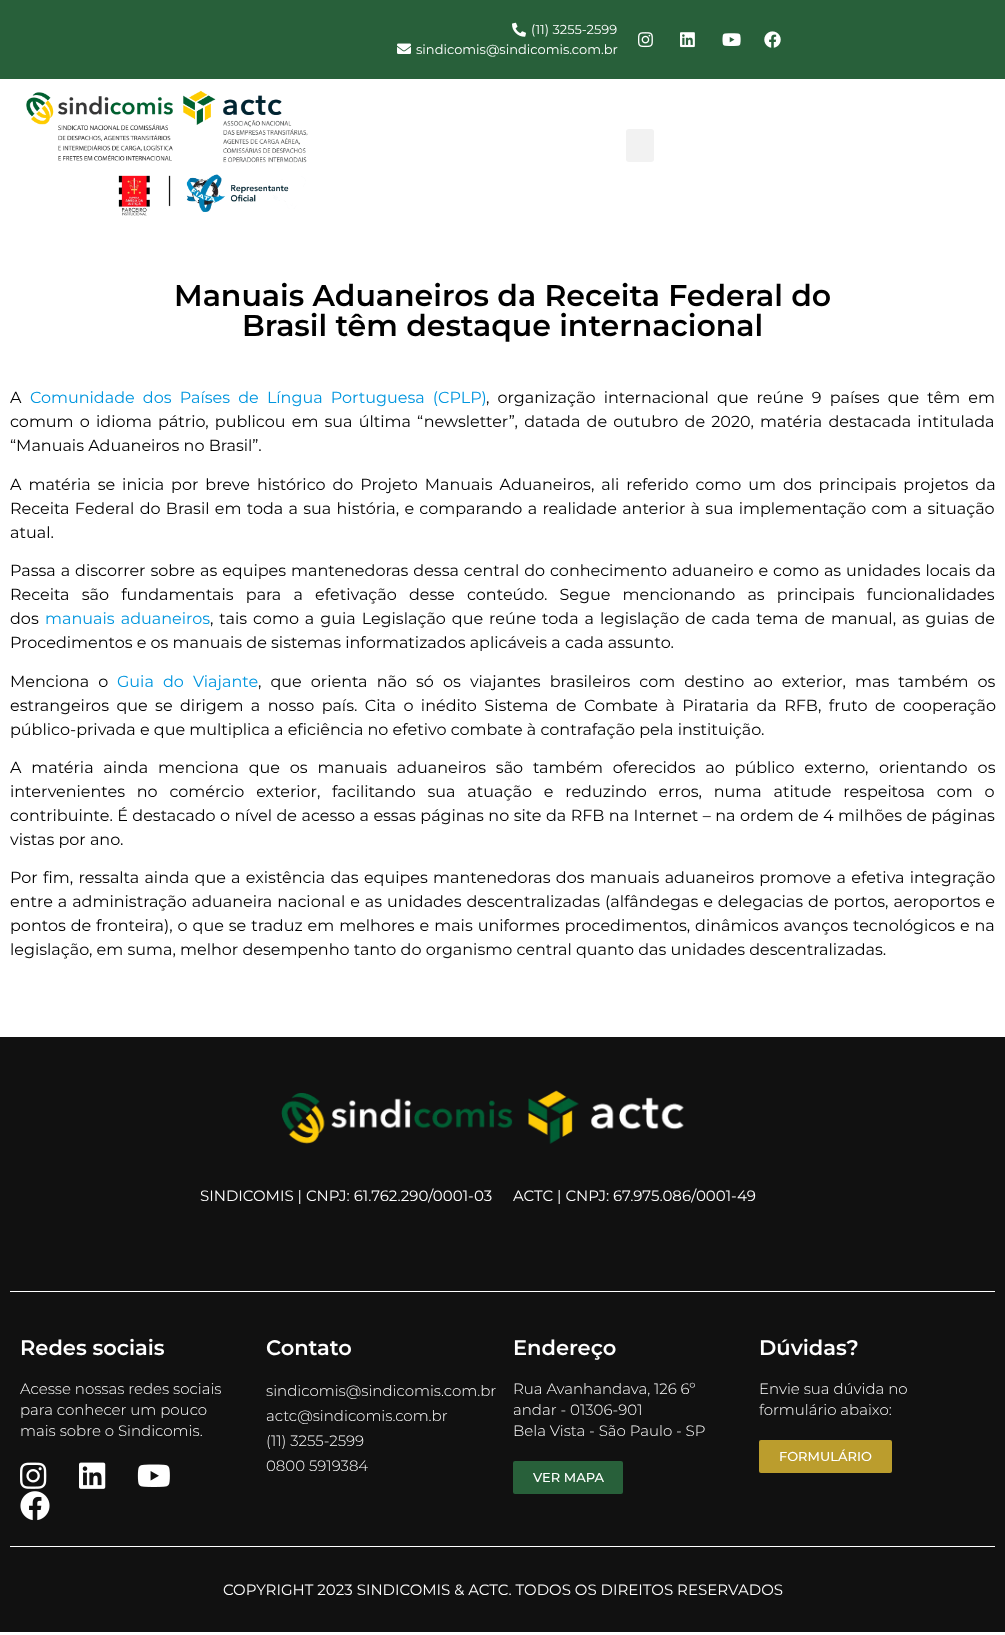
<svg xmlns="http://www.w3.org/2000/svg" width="1005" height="1635">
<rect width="100%" height="100%" fill="#fff"/>
<rect width="1005" height="79" fill="#28603a"/>
<image x="512" y="22" width="14" height="15" href="media/1.png"/>
<text x="531" y="34" style="font-family:Montserrat;font-size:13px;fill:#fff">(11) 3255-2599</text>
<image x="397" y="43" width="14" height="11" href="media/2.png"/>
<text x="416" y="54" style="font-family:Montserrat;font-size:13px;fill:#fff">sindicomis@sindicomis.com.br</text>
<image x="638" y="32" width="15" height="16" href="media/3.png"/>
<image x="680" y="32" width="15" height="16" href="media/4.png"/>
<image x="722" y="33" width="19" height="13" href="media/5.png"/>
<image x="764" y="31" width="17" height="17" href="media/6.png"/>
<image x="26" y="90" width="282" height="126" href="media/7.png"/>
<rect x="626" y="129" width="28" height="33" rx="3" fill="#f2f2f2"/>
<text x="174" y="306" style="font-family:Montserrat;font-size:30px;font-weight:600;fill:#000">Manuais Aduaneiros da Receita Federal do</text>
<text x="242" y="336" style="font-family:Montserrat;font-size:30px;font-weight:600;fill:#000">Brasil têm destaque internacional</text>
<text x="10" y="403" style="font-family:Montserrat;font-size:16px;fill:#000">A</text>
<text x="30" y="403" word-spacing="4" style="font-family:Montserrat;font-size:16px;fill:#0096df">Comunidade dos Países de Língua Portuguesa (CPLP)</text>
<text x="486" y="403" word-spacing="4" style="font-family:Montserrat;font-size:16px;fill:#000">, organização internacional que reúne 9 países que têm em</text>
<text x="10" y="427" word-spacing="2" style="font-family:Montserrat;font-size:16px;fill:#000">comum o idioma pátrio, publicou em sua última “newsletter”, datada de outubro de 2020, matéria destacada intitulada</text>
<text x="10" y="451" style="font-family:Montserrat;font-size:16px;fill:#000">“Manuais Aduaneiros no Brasil”.</text>
<text x="10" y="490" word-spacing="2.75" style="font-family:Montserrat;font-size:16px;fill:#000">A matéria se inicia por breve histórico do Projeto Manuais Aduaneiros, ali referido como um dos principais projetos da</text>
<text x="10" y="514" word-spacing="1.1" style="font-family:Montserrat;font-size:16px;fill:#000">Receita Federal do Brasil em toda a sua história, e comparando a realidade anterior à sua implementação com a situação</text>
<text x="10" y="538" style="font-family:Montserrat;font-size:16px;fill:#000">atual.</text>
<text x="10" y="576" word-spacing="0.75" style="font-family:Montserrat;font-size:16px;fill:#000">Passa a discorrer sobre as equipes mantenedoras dessa central do conhecimento aduaneiro e como as unidades locais da</text>
<text x="10" y="600" word-spacing="8" style="font-family:Montserrat;font-size:16px;fill:#000">Receita são fundamentais para a efetivação desse conteúdo. Segue mencionando as principais funcionalidades</text>
<text x="10" y="624" style="font-family:Montserrat;font-size:16px;fill:#000">dos</text>
<text x="45" y="624" word-spacing="2" style="font-family:Montserrat;font-size:16px;fill:#0096df">manuais aduaneiros</text>
<text x="210" y="624" word-spacing="1.75" style="font-family:Montserrat;font-size:16px;fill:#000">, tais como a guia Legislação que reúne toda a legislação de cada tema de manual, as guias de</text>
<text x="10" y="648" style="font-family:Montserrat;font-size:16px;fill:#000">Procedimentos e os manuais de sistemas informatizados aplicáveis a cada assunto.</text>
<text x="10" y="687" word-spacing="4.9" style="font-family:Montserrat;font-size:16px;fill:#000">Menciona o</text>
<text x="117" y="687" word-spacing="4.9" style="font-family:Montserrat;font-size:16px;fill:#0096df">Guia do Viajante</text>
<text x="258" y="687" word-spacing="4.9" style="font-family:Montserrat;font-size:16px;fill:#000">, que orienta não só os viajantes brasileiros com destino ao exterior, mas também os</text>
<text x="10" y="711" word-spacing="3.25" style="font-family:Montserrat;font-size:16px;fill:#000">estrangeiros que se dirigem a nosso país. Cita o inédito Sistema de Combate à Pirataria da RFB, fruto de cooperação</text>
<text x="10" y="735" style="font-family:Montserrat;font-size:16px;fill:#000">público-privada e que multiplica a eficiência no efetivo combate à contrafação pela instituição.</text>
<text x="10" y="773" word-spacing="5.6" style="font-family:Montserrat;font-size:16px;fill:#000">A matéria ainda menciona que os manuais aduaneiros são também oferecidos ao público externo,</text>
<text x="879" y="773" word-spacing="6" style="font-family:Montserrat;font-size:16px;fill:#000">orientando os</text>
<text x="10" y="797" word-spacing="7.6" style="font-family:Montserrat;font-size:16px;fill:#000">intervenientes no comércio exterior, facilitando sua atuação e reduzindo erros, numa atitude respeitosa com o</text>
<text x="10" y="821" word-spacing="0.25" style="font-family:Montserrat;font-size:16px;fill:#000">contribuinte. É destacado o nível de acesso a essas páginas no site da RFB na Internet – na ordem de 4 milhões de páginas</text>
<text x="10" y="845" style="font-family:Montserrat;font-size:16px;fill:#000">vistas por ano.</text>
<text x="10" y="883" word-spacing="1.1" style="font-family:Montserrat;font-size:16px;fill:#000">Por fim, ressalta ainda que a existência das equipes mantenedoras dos manuais aduaneiros promove a efetiva integração</text>
<text x="10" y="907" word-spacing="0.75" style="font-family:Montserrat;font-size:16px;fill:#000">entre a administração aduaneira nacional e as unidades descentralizadas (alfândegas e delegacias de portos, aeroportos e</text>
<text x="10" y="931" word-spacing="0.75" style="font-family:Montserrat;font-size:16px;fill:#000">pontos de fronteira), o que se traduz em melhores e mais uniformes procedimentos, dinâmicos avanços tecnológicos e na</text>
<text x="10" y="955" style="font-family:Montserrat;font-size:16px;fill:#000">legislação, em suma, melhor desempenho tanto do organismo central quanto das unidades descentralizadas.</text>
<rect y="1037" width="1005" height="595" fill="#111"/>
<image x="281" y="1090" width="403" height="54" href="media/8.png"/>
<text x="200" y="1201" style="font-family:Montserrat;font-size:15px;fill:#fff">SINDICOMIS | CNPJ: 61.762.290/0001-03</text>
<text x="513" y="1201" style="font-family:Montserrat;font-size:15px;fill:#fff">ACTC | CNPJ: 67.975.086/0001-49</text>
<rect x="10" y="1291" width="985" height="1" fill="#fff"/>
<text x="20" y="1355" style="font-family:Montserrat;font-size:21px;font-weight:600;fill:#fff">Redes sociais</text>
<text x="20" y="1394" style="font-family:Montserrat;font-size:15px;font-weight:300;fill:#fff">Acesse nossas redes sociais</text>
<text x="20" y="1415" style="font-family:Montserrat;font-size:15px;font-weight:300;fill:#fff">para conhecer um pouco</text>
<text x="20" y="1436" style="font-family:Montserrat;font-size:15px;font-weight:300;fill:#fff">mais sobre o Sindicomis.</text>
<image x="20" y="1462" width="27" height="27" href="media/9.png"/>
<image x="79" y="1462" width="27" height="27" href="media/10.png"/>
<image x="137" y="1464" width="33" height="23" href="media/11.png"/>
<image x="20" y="1491" width="30" height="30" href="media/12.png"/>
<text x="266" y="1355" style="font-family:Montserrat;font-size:21px;font-weight:600;fill:#fff">Contato</text>
<text x="266" y="1396" style="font-family:Montserrat;font-size:15px;font-weight:300;fill:#fff">sindicomis@sindicomis.com.br</text>
<text x="266" y="1421" style="font-family:Montserrat;font-size:15px;font-weight:300;fill:#fff">actc@sindicomis.com.br</text>
<text x="266" y="1446" style="font-family:Montserrat;font-size:15px;font-weight:300;fill:#fff">(11) 3255-2599</text>
<text x="266" y="1471" style="font-family:Montserrat;font-size:15px;font-weight:300;fill:#fff">0800 5919384</text>
<text x="513" y="1355" style="font-family:Montserrat;font-size:21px;font-weight:600;fill:#fff">Endereço</text>
<text x="513" y="1394" style="font-family:Montserrat;font-size:15px;font-weight:300;fill:#fff">Rua Avanhandava, 126 6º</text>
<text x="513" y="1415" style="font-family:Montserrat;font-size:15px;font-weight:300;fill:#fff">andar - 01306-901</text>
<text x="513" y="1436" style="font-family:Montserrat;font-size:15px;font-weight:300;fill:#fff">Bela Vista - São Paulo - SP</text>
<rect x="513" y="1461" width="110" height="33" rx="2" fill="#28603a"/>
<text x="533" y="1482" style="font-family:Montserrat;font-size:13px;font-weight:500;fill:#fff">VER MAPA</text>
<text x="759" y="1355" style="font-family:Montserrat;font-size:21px;font-weight:600;fill:#fff">Dúvidas?</text>
<text x="759" y="1394" style="font-family:Montserrat;font-size:15px;font-weight:300;fill:#fff">Envie sua dúvida no</text>
<text x="759" y="1415" style="font-family:Montserrat;font-size:15px;font-weight:300;fill:#fff">formulário abaixo:</text>
<rect x="759" y="1440" width="133" height="33" rx="2" fill="#bb9d2d"/>
<text x="779" y="1461" style="font-family:Montserrat;font-size:13px;font-weight:500;fill:#fff">FORMULÁRIO</text>
<rect x="10" y="1546" width="985" height="1" fill="#fff"/>
<text x="223" y="1595" style="font-family:Montserrat;font-size:15px;fill:#fff">COPYRIGHT 2023 SINDICOMIS &amp; ACTC. TODOS OS DIREITOS RESERVADOS</text>
</svg>
